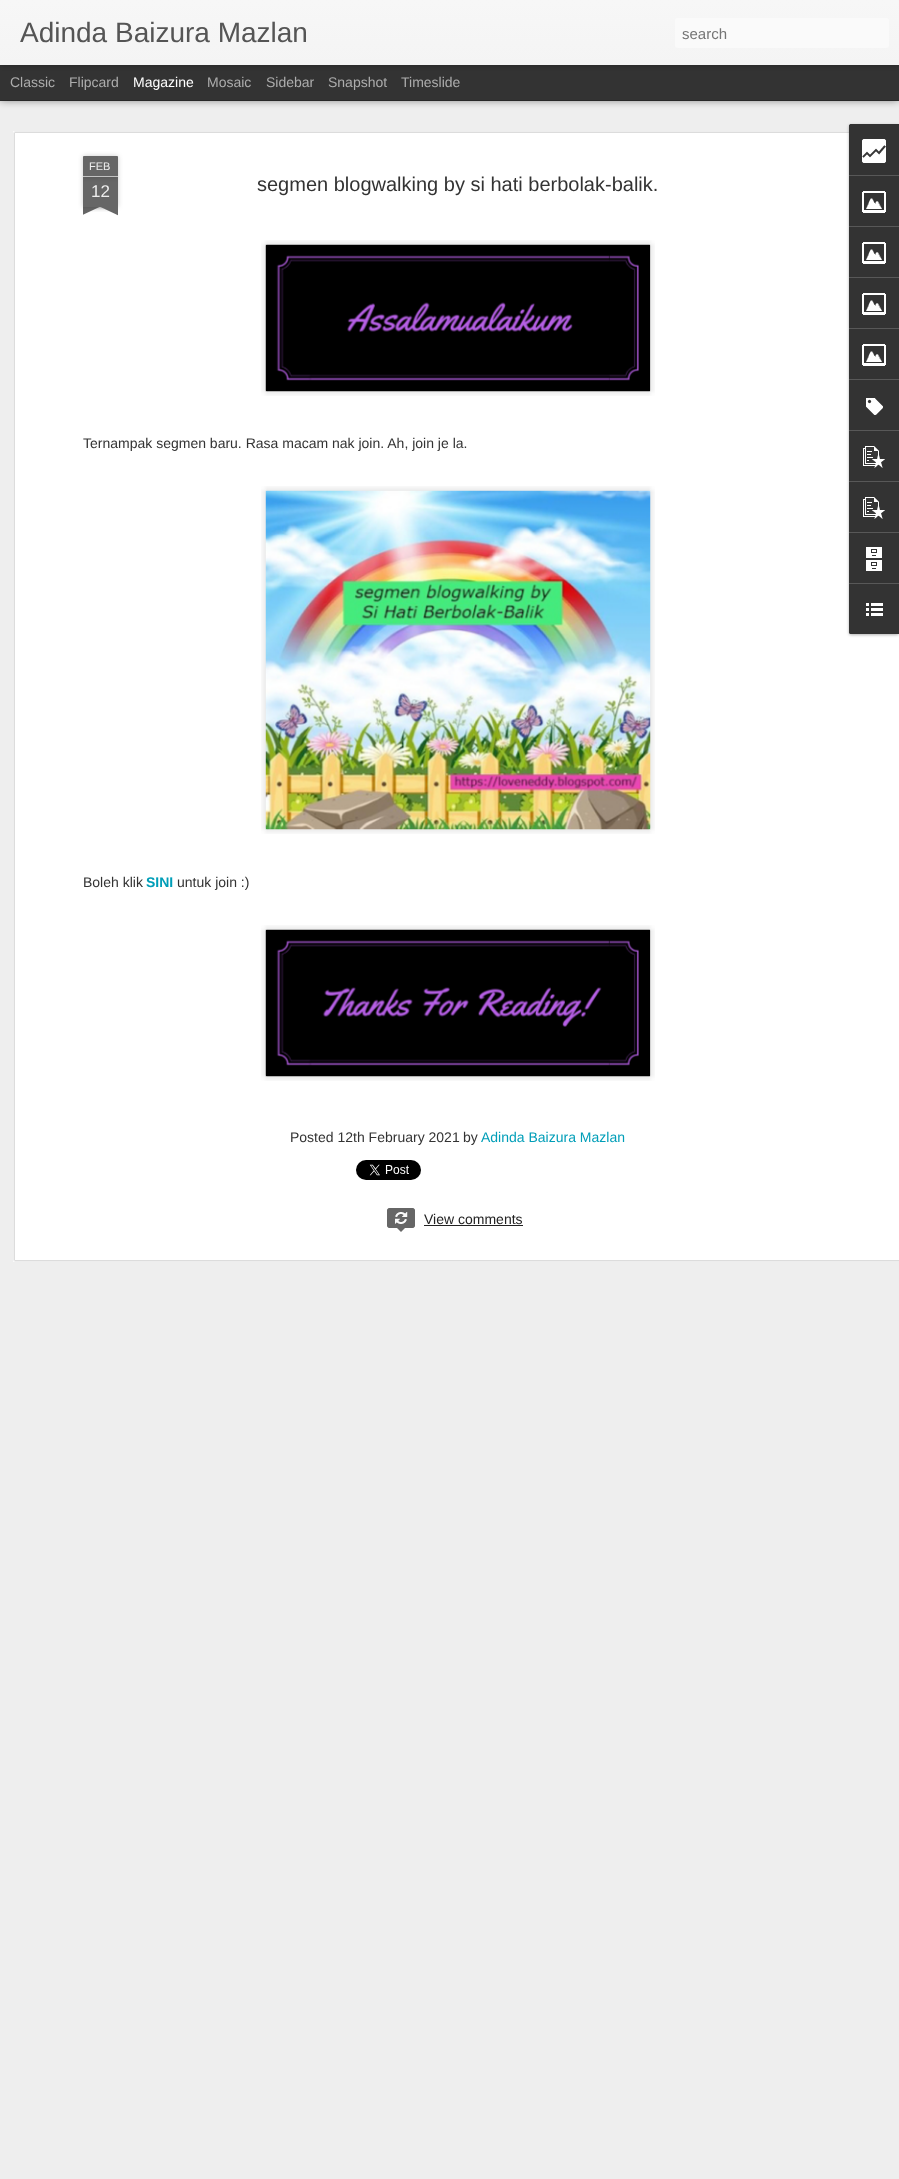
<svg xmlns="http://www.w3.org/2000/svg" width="899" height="2179">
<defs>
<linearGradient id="g1" gradientUnits="userSpaceOnUse" x1="0" y1="0" x2="0" y2="65"><stop offset="0" stop-color="#f7f7f7"/><stop offset="1" stop-color="#f4f4f4"/></linearGradient>
<clipPath id="clip1"><rect x="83" y="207" width="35" height="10"/></clipPath>
<clipPath id="clip2"><rect x="83" y="207" width="35" height="10"/></clipPath>
</defs>
<rect width="100%" height="100%" fill="#333"/>
<rect y="101" width="899" height="2078" fill="#eee"/>
<rect y="65" width="899" height="35" fill="#00000080" filter="blur(4px)"/>
<rect y="65" width="899" height="35" fill="#333"/>
<rect width="899" height="65" fill="#0000004d" filter="blur(2.5px)"/>
<rect width="899" height="65" fill="url(#g1)"/>
<text x="20" y="42" style="font-family:Liberation Sans;font-size:28px;fill:#555">Adinda Baizura Mazlan</text>
<rect x="675" y="18" width="214" height="30" rx="3" fill="#fafafa"/>
<text x="682" y="39" style="font-family:Liberation Sans;font-size:15px;fill:#757575">search</text>
<text x="10" y="87" style="font-family:Liberation Sans;font-size:14px;fill:#adadad">Classic</text>
<text x="69" y="87" style="font-family:Liberation Sans;font-size:14px;fill:#adadad">Flipcard</text>
<text x="133" y="87" style="font-family:Liberation Sans;font-size:14px;fill:#fff">Magazine</text>
<text x="207" y="87" style="font-family:Liberation Sans;font-size:14px;fill:#adadad">Mosaic</text>
<text x="266" y="87" style="font-family:Liberation Sans;font-size:14px;fill:#adadad">Sidebar</text>
<text x="328" y="87" style="font-family:Liberation Sans;font-size:14px;fill:#adadad">Snapshot</text>
<text x="401" y="87" style="font-family:Liberation Sans;font-size:14px;fill:#adadad">Timeslide</text>
<rect x="13" y="131" width="886" height="1131" fill="#fff"/>
<image x="13" y="131" width="886" height="1131" href="media/1.png"/>
<rect x="83" y="177" width="35" height="30" fill="#00000033" filter="blur(2.5px)"/>
<rect x="83" y="177" width="35" height="30" fill="#666"/>
<rect x="83" y="156" width="35" height="21" rx="1" fill="#00000033" filter="blur(2.5px)"/>
<path d="M84 156h33c.5 0 1 .5 1 1v20h-35v-20c0-.5 .5-1 1-1z" fill="#666"/>
<rect x="83" y="176" width="35" height="1" fill="#c2c2c2"/>
<text x="89" y="170" style="font-family:Liberation Sans;font-size:11px;fill:#eee">FEB</text>
<text x="91" y="197" style="font-family:Liberation Sans;font-size:17px;fill:#eee">12</text>
<g clip-path="url(#clip1)">
<rect x="74" y="197" width="50" height="10" fill="#00000033" filter="blur(2.5px)"/>
</g>
<g clip-path="url(#clip2)">
<path d="M74 208l45-21l4 9l-45 21z" fill="#666"/>
</g>
<g clip-path="url(#clip1)">
<rect x="77" y="197" width="50" height="10" fill="#00000033" filter="blur(2.5px)"/>
</g>
<g clip-path="url(#clip2)">
<path d="M81 187l45 21l-4 9l-45-21z" fill="#666"/>
</g>
<text x="257" y="191" style="font-family:Liberation Sans;font-size:20px;fill:#333">segmen blogwalking by si hati berbolak-balik.</text>
<image x="261" y="240" width="394" height="156" href="media/2.png"/>
<image x="265" y="244" width="386" height="148" href="media/3.png"/>
<text x="83" y="448" style="font-family:Liberation Sans;font-size:14px;fill:#333">Ternampak segmen baru. Rasa macam nak join. Ah, join je la.</text>
<image x="261" y="486" width="394" height="348" href="media/4.png"/>
<image x="265" y="490" width="386" height="340" href="media/5.png"/>
<text x="83" y="887" style="font-family:Liberation Sans;font-size:14px;fill:#333">Boleh klik</text>
<text x="146" y="887" style="font-family:Liberation Sans;font-size:14px;font-weight:bold;fill:#009eb8">SINI</text>
<text x="177" y="887" style="font-family:Liberation Sans;font-size:14px;fill:#333">untuk join :)</text>
<image x="261" y="925" width="394" height="156" href="media/6.png"/>
<image x="265" y="929" width="386" height="148" href="media/7.png"/>
<text x="290" y="1142" style="font-family:Liberation Sans;font-size:14px;fill:#333">Posted 12th February 2021</text>
<text x="463" y="1142" style="font-family:Liberation Sans;font-size:14px;fill:#333">by</text>
<text x="481" y="1142" style="font-family:Liberation Sans;font-size:14px;fill:#009eb8">Adinda Baizura Mazlan</text>
<image x="356" y="1160" width="65" height="20" href="media/8.png"/>
<rect x="387" y="1208" width="28" height="20" rx="3" fill="#666"/>
<image x="395" y="1212" width="13" height="12" href="media/9.png"/>
<rect x="387.5" y="1208.5" width="27" height="19" rx="2.5" fill="none" stroke="#666"/>
<path d="M396 1227h10l-5 5z" fill="#666"/>
<text x="424" y="1224" style="font-family:Liberation Sans;font-size:14px;fill:#222">View comments</text>
<rect x="424" y="1225" width="99" height="1" fill="#222"/>
<rect x="849" y="125" width="50" height="510" rx="2" fill="#0000004d" filter="blur(1.5px)"/>
<path d="M851 124h48v510h-48c-1 0-2-1-2-2v-506c0-1 1-2 2-2z" fill="#333"/>
<path d="M851 124h48v51h-50v-49c0-1 1-2 2-2z" fill="#333"/>
<image x="862" y="139" width="24" height="24" href="media/10.png"/>
<rect x="849" y="175" width="50" height="1" fill="#585858"/>
<image x="862" y="191" width="24" height="22" href="media/11.png"/>
<rect x="849" y="226" width="50" height="1" fill="#585858"/>
<image x="862" y="242" width="24" height="22" href="media/11.png"/>
<rect x="849" y="277" width="50" height="1" fill="#585858"/>
<image x="862" y="293" width="24" height="22" href="media/11.png"/>
<rect x="849" y="328" width="50" height="1" fill="#585858"/>
<image x="862" y="344" width="24" height="22" href="media/11.png"/>
<rect x="849" y="379" width="50" height="1" fill="#585858"/>
<image x="866" y="398" width="17" height="17" href="media/12.png"/>
<rect x="849" y="430" width="50" height="1" fill="#585858"/>
<image x="863" y="446" width="22" height="22" href="media/13.png"/>
<rect x="849" y="481" width="50" height="1" fill="#585858"/>
<image x="863" y="497" width="22" height="22" href="media/13.png"/>
<rect x="849" y="532" width="50" height="1" fill="#585858"/>
<image x="866" y="547" width="16" height="24" href="media/14.png"/>
<path d="M849 583h50v51h-48c-1 0-2-1-2-2z" fill="#333"/>
<rect x="849" y="583" width="50" height="1" fill="#585858"/>
<image x="866" y="603" width="17" height="13" href="media/15.png"/>
</svg>
